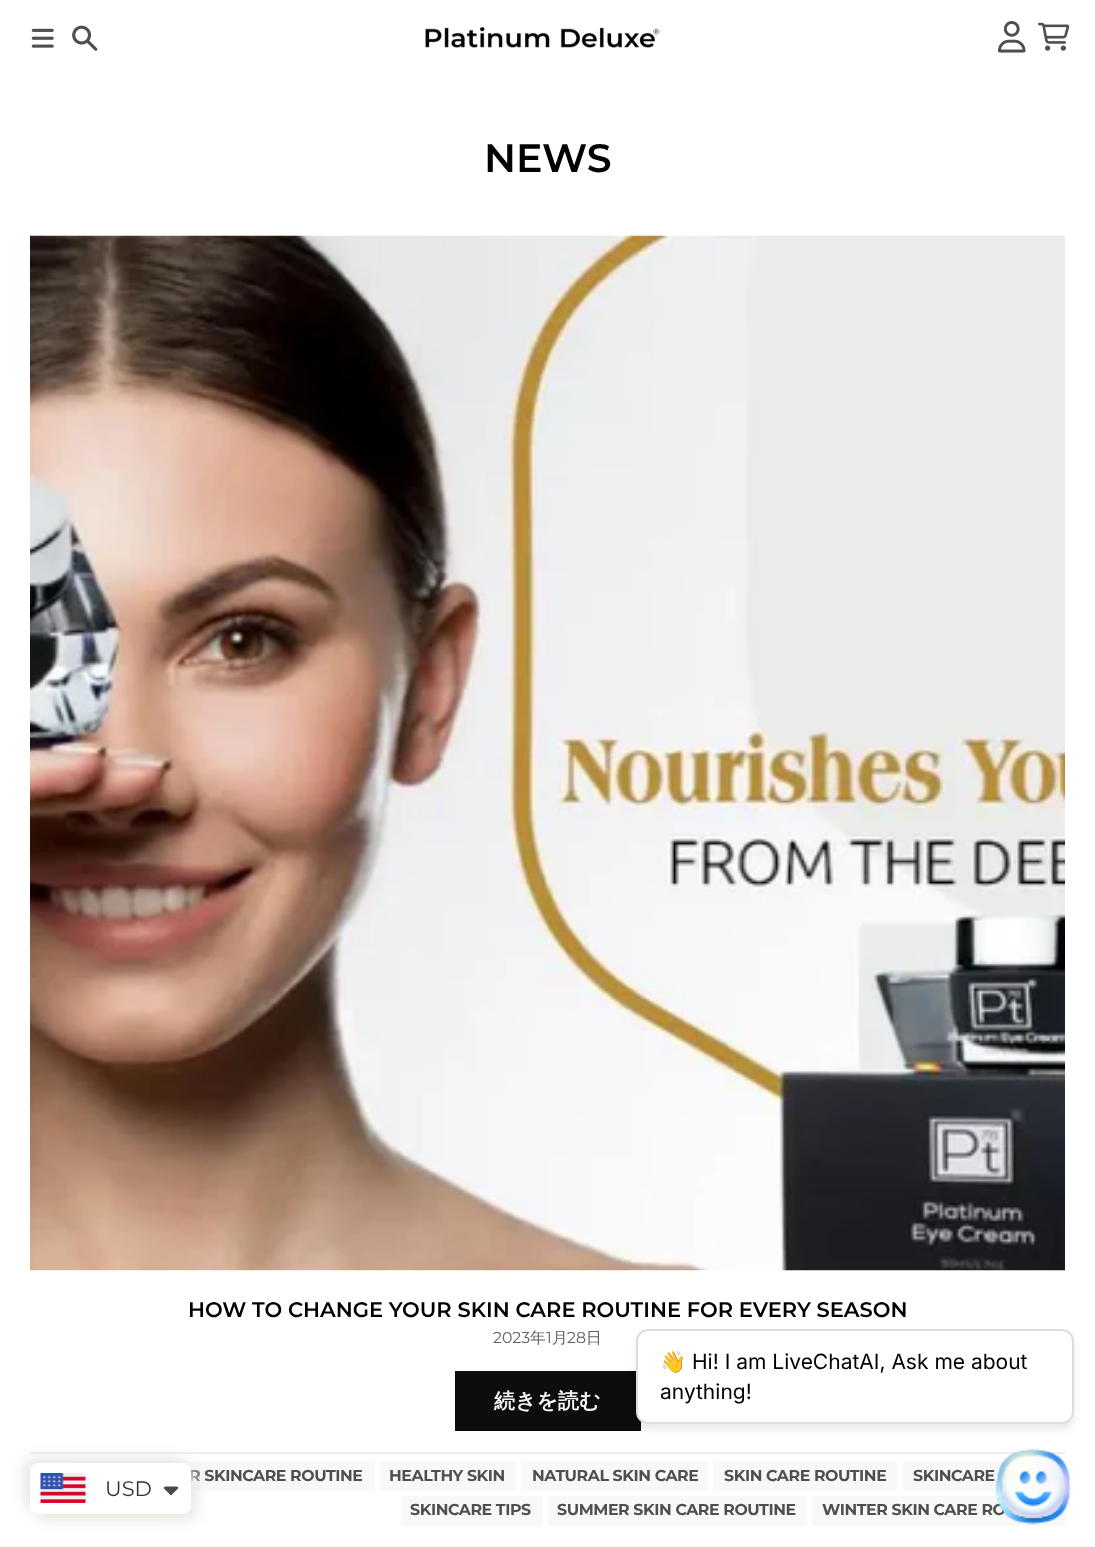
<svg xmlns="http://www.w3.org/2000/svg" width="1095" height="1547">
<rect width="100%" height="100%" fill="#fff"/>
<image x="31" y="28" width="23" height="20" href="media/1.png"/>
<image x="72" y="25" width="26" height="26" href="media/2.png"/>
<image x="425" y="27" width="235" height="21" href="media/3.png"/>
<image x="998" y="21" width="28" height="32" href="media/4.png"/>
<image x="1038" y="22" width="32" height="29" href="media/5.png"/>
<text x="484" y="172" style="font-family:Montserrat;font-size:39.5px;font-weight:600;fill:#000">NEWS</text>
<image x="30" y="235" width="1035" height="1036" href="media/6.png"/>
<text x="188" y="1317" style="font-family:Montserrat;font-size:21px;font-weight:600;fill:#000">HOW TO CHANGE YOUR SKIN CARE ROUTINE FOR EVERY SEASON</text>
<text x="493" y="1343" style="font-family:Montserrat;font-size:15.75px;fill:#616161">2023</text>
<text x="530" y="1343" style="font-family:WenQuanYi Zen Hei;font-size:15.75px;font-weight:500;fill:#616161">年</text>
<text x="546" y="1343" style="font-family:Montserrat;font-size:15.75px;fill:#616161">1</text>
<text x="552" y="1343" style="font-family:WenQuanYi Zen Hei;font-size:15.75px;font-weight:500;fill:#616161">月</text>
<text x="567" y="1343" style="font-family:Montserrat;font-size:15.75px;fill:#616161">28</text>
<text x="586" y="1343" style="font-family:WenQuanYi Zen Hei;font-size:15.75px;font-weight:500;fill:#616161">日</text>
<rect x="455" y="1371" width="186" height="60" fill="#0d0d0d"/>
<text x="494" y="1408" style="font-family:WenQuanYi Zen Hei;font-size:21px;font-weight:bold;fill:#f3f3f3">続きを読む</text>
<rect x="30" y="1452" width="1035" height="2" fill="#ededed"/>
<rect x="71" y="1461" width="303" height="30" fill="#f8f8f8"/>
<text x="189" y="1481" style="font-family:Montserrat;font-size:15.75px;font-weight:bold;letter-spacing:-0.4px;fill:#4f4f4f">R SKINCARE ROUTINE</text>
<rect x="380" y="1461" width="136" height="30" fill="#f8f8f8"/>
<text x="389" y="1481" style="font-family:Montserrat;font-size:15.75px;font-weight:bold;letter-spacing:-0.4px;fill:#4f4f4f">HEALTHY SKIN</text>
<rect x="521" y="1461" width="187" height="30" fill="#f8f8f8"/>
<text x="532" y="1481" style="font-family:Montserrat;font-size:15.75px;font-weight:bold;letter-spacing:-0.4px;fill:#4f4f4f">NATURAL SKIN CARE</text>
<rect x="714" y="1461" width="183" height="30" fill="#f8f8f8"/>
<text x="724" y="1481" style="font-family:Montserrat;font-size:15.75px;font-weight:bold;letter-spacing:-0.4px;fill:#4f4f4f">SKIN CARE ROUTINE</text>
<rect x="903" y="1461" width="162" height="30" fill="#f8f8f8"/>
<text x="913" y="1481" style="font-family:Montserrat;font-size:15.75px;font-weight:bold;letter-spacing:-0.4px;fill:#4f4f4f">SKINCARE</text>
<rect x="401" y="1496" width="141" height="30" fill="#f8f8f8"/>
<text x="410" y="1515" style="font-family:Montserrat;font-size:15.75px;font-weight:bold;letter-spacing:-0.4px;fill:#4f4f4f">SKINCARE TIPS</text>
<rect x="548" y="1496" width="259" height="30" fill="#f8f8f8"/>
<text x="557" y="1515" style="font-family:Montserrat;font-size:15.75px;font-weight:bold;letter-spacing:-0.4px;fill:#4f4f4f">SUMMER SKIN CARE ROUTINE</text>
<rect x="812" y="1496" width="253" height="30" fill="#f8f8f8"/>
<text x="822" y="1515" style="font-family:Montserrat;font-size:15.75px;font-weight:bold;letter-spacing:-0.4px;fill:#4f4f4f">WINTER SKIN CARE RO</text>
<rect x="636" y="1335" width="438" height="95" rx="12" fill="#00000014" filter="blur(3px)"/>
<rect x="637" y="1330" width="436" height="93" rx="11" fill="#fff" stroke="#ddd" stroke-width="2"/>
<text x="660" y="1369" style="font-family:Noto Color Emoji;font-size:21px;fill:#000">👋</text>
<text x="692" y="1369" style="font-family:Inter;font-size:21px;fill:#000">Hi! I am LiveChatAI, Ask me about</text>
<text x="660" y="1399" style="font-family:Inter;font-size:21px;fill:#000">anything!</text>
<image x="995" y="1448" width="77" height="77" href="media/7.png"/>
<rect x="24" y="1457" width="161" height="51" rx="8" fill="#e8e8e2" filter="blur(7px)"/>
<rect x="36" y="1469" width="161" height="51" rx="8" fill="#e8e8e2" filter="blur(7px)"/>
<rect x="30" y="1463" width="161" height="51" rx="8" fill="#fff"/>
<image x="40" y="1473" width="46" height="30" href="media/8.png"/>
<text x="105" y="1496" style="font-family:Montserrat;font-size:21px;fill:#333">USD</text>
<path d="M166.5 1486.5c-1.5 0-2.5 .5-3 1.5l7.5 7.5l7.5-7.5c-.5-1-1.5-1.5-3-1.5z" fill="#474942"/>
</svg>
